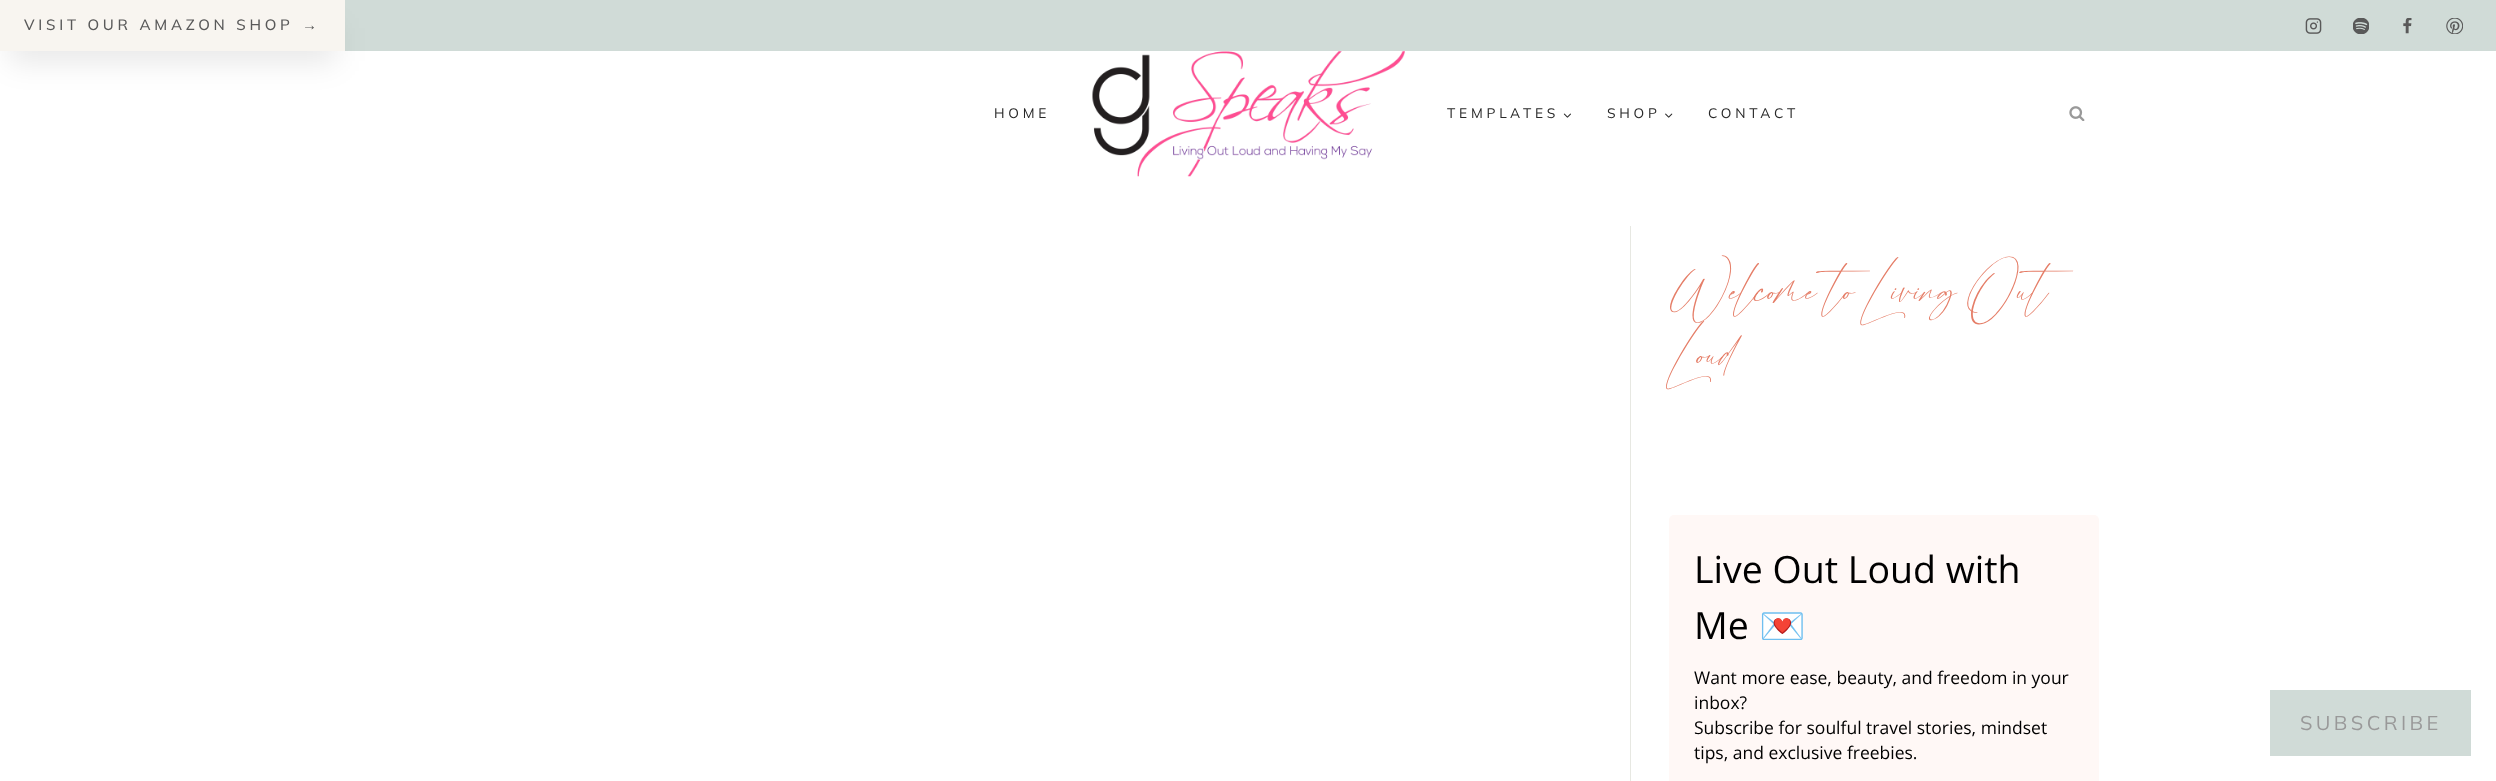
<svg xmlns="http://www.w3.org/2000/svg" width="2496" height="781">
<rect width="100%" height="100%" fill="#fff"/>
<rect x="345" width="2151" height="51" fill="#d0dbd7"/>
<rect x="9" y="28" width="327" height="33" fill="#0000001a" filter="blur(15.5px)"/>
<rect width="345" height="51" fill="#f8f5f0"/>
<text x="24" y="30" style="font-family:Mulish;font-size:15px;font-weight:500;letter-spacing:3.75px;fill:#595959">VISIT OUR AMAZON SHOP</text>
<text x="302" y="30" style="font-family:Liberation Sans;font-size:15px;letter-spacing:3.75px;fill:#595959">→</text>
<image x="2305" y="18" width="17" height="16" href="media/1.png"/>
<image x="2353" y="18" width="16" height="16" href="media/2.png"/>
<image x="2403" y="18" width="9" height="16" href="media/3.png"/>
<image x="2446" y="18" width="17" height="16" href="media/4.png"/>
<text x="994" y="118" style="font-family:Mulish;font-size:13.75px;letter-spacing:3.75px;fill:#282828">HOME</text>
<image x="1092" y="51" width="313" height="126" href="media/5.png"/>
<text x="1447" y="118" style="font-family:Mulish;font-size:13.75px;letter-spacing:3.75px;fill:#282828">TEMPLATES</text>
<image x="1563" y="113" width="8" height="5" href="media/6.png"/>
<text x="1607" y="118" style="font-family:Mulish;font-size:13.75px;letter-spacing:3.75px;fill:#282828">SHOP</text>
<image x="1665" y="113" width="8" height="5" href="media/7.png"/>
<text x="1708" y="118" style="font-family:Mulish;font-size:13.75px;letter-spacing:3.75px;fill:#282828">CONTACT</text>
<image x="2069" y="106" width="16" height="15" href="media/8.png"/>
<rect x="1630" y="226" width="1" height="555" fill="#e7e8e2"/>
<text x="1669" y="307" style="font-family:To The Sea;font-size:47.5px;font-style:italic;fill:#e57e68">Welcome to Living Out</text>
<text x="1669" y="371" style="font-family:To The Sea;font-size:47.5px;font-style:italic;fill:#e57e68">Loud</text>
<rect x="1669" y="515" width="430" height="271" rx="5" fill="#fff8f6"/>
<text x="1694" y="583" style="font-family:Open Sans;font-size:37.5px;fill:#000">Live Out Loud with</text>
<text x="1694" y="639" style="font-family:Open Sans;font-size:37.5px;fill:#000">Me</text>
<text x="1759" y="639" style="font-family:Noto Color Emoji;font-size:37.5px;fill:#000">💌</text>
<text x="1694" y="684" style="font-family:Open Sans;font-size:17.5px;fill:#000">Want more ease, beauty, and freedom in your</text>
<text x="1694" y="709" style="font-family:Open Sans;font-size:17.5px;fill:#000">inbox?</text>
<text x="1694" y="734" style="font-family:Open Sans;font-size:17.5px;fill:#000">Subscribe for soulful travel stories, mindset</text>
<text x="1694" y="759" style="font-family:Open Sans;font-size:17.5px;fill:#000">tips, and exclusive freebies.</text>
<rect x="2270" y="690" width="201" height="66" fill="#d0dbd7"/>
<text x="2300" y="730" style="font-family:Mulish;font-size:20px;letter-spacing:3.4px;fill:#999">SUBSCRIBE</text>
</svg>
